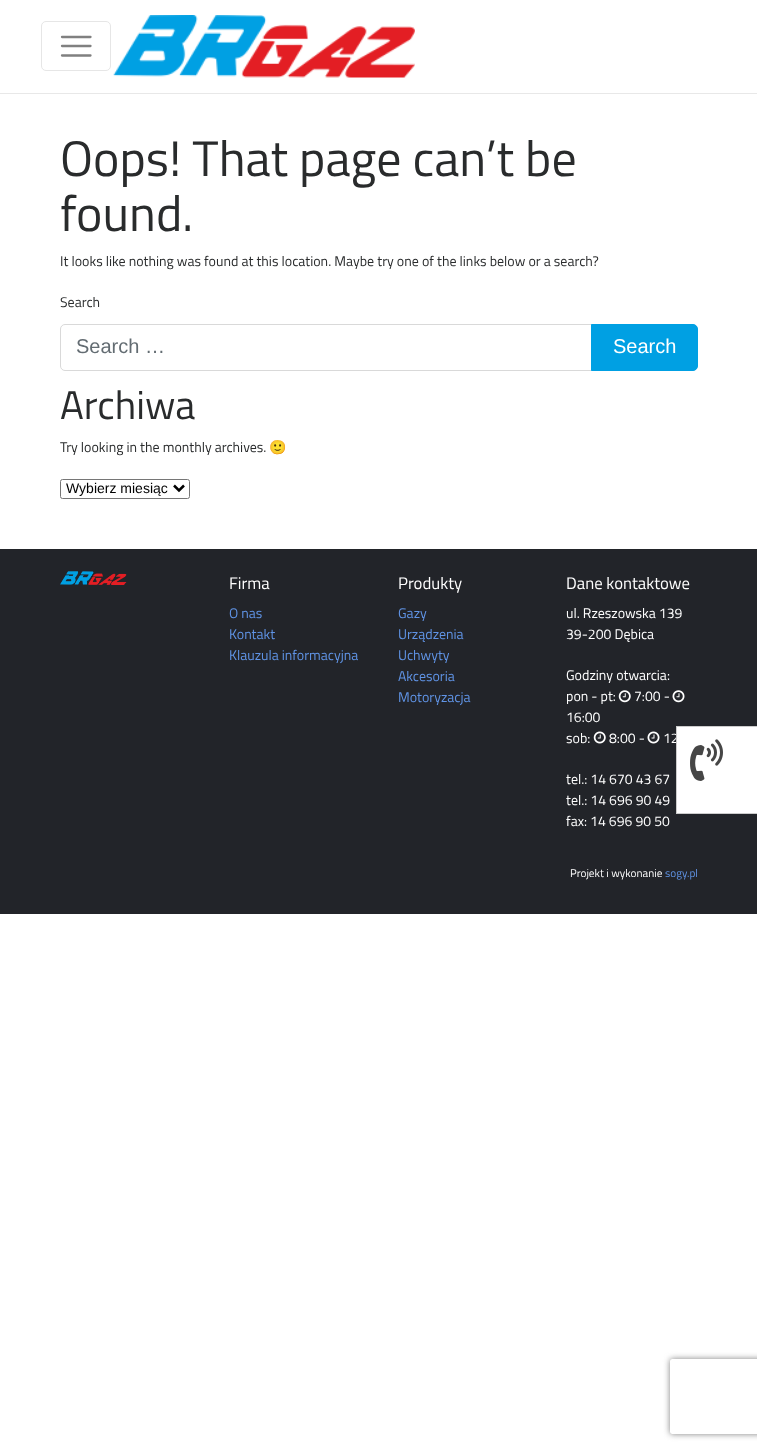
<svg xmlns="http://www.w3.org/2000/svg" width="757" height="1451">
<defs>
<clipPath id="clip1"><path d="M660 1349h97v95h-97zm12.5 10h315c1.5 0 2.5 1 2.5 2.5v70c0 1.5-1 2.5-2.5 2.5h-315c-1.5 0-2.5-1-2.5-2.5v-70c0-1.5 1-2.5 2.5-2.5z" clip-rule="evenodd"/></clipPath>
</defs>
<rect width="100%" height="100%" fill="#fff"/>
<rect y="93" width="757" height="1" fill="#e8e8e8"/>
<rect x="41.5" y="21.5" width="69" height="49" rx="4.5" fill="none" stroke="#e6e6e6"/>
<path d="M62 37h28.5m-28.5 9h28.5m-28.5 9.5h28.5" fill="none" stroke="#808080" stroke-width="2.3" stroke-linecap="round"/>
<image x="113" y="15" width="302" height="63" href="media/1.png"/>
<text x="60" y="176" style="font-family:Titillium Web;font-size:50px;fill:#292b2c">Oops! That page can’t be</text>
<text x="60" y="231" style="font-family:Titillium Web;font-size:50px;fill:#292b2c">found.</text>
<text x="60" y="266" style="font-family:Titillium Web;font-size:14px;fill:#292b2c">It looks like nothing was found at this location. Maybe try one of the links below or a search?</text>
<text x="60" y="307" style="font-family:Titillium Web;font-size:14px;fill:#292b2c">Search</text>
<path d="M65 324.5h527.5v46h-527.5c-2.5 0-4.5-2-4.5-4.5v-37c0-2.5 2-4.5 4.5-4.5z" fill="none" stroke="#d9d9d9"/>
<text x="76" y="353" style="font-family:Liberation Sans;font-size:20px;fill:#636c72">Search …</text>
<path d="M591.5 324.5h101.5c2.5 0 4.5 2 4.5 4.5v37c0 2.5-2 4.5-4.5 4.5h-101.5z" fill="#00a0e3" stroke="#00a0e3"/>
<text x="613" y="353" style="font-family:Liberation Sans;font-size:20px;fill:#fff">Search</text>
<text x="60" y="419" style="font-family:Titillium Web;font-size:40px;fill:#292b2c">Archiwa</text>
<text x="60" y="452" style="font-family:Titillium Web;font-size:14px;fill:#292b2c">Try looking in the monthly archives.</text>
<text x="269" y="452" style="font-family:Noto Color Emoji;font-size:14px;fill:#292b2c">🙂</text>
<rect x="60.5" y="479.5" width="129" height="19" rx="2" fill="none" stroke="#767676"/>
<path d="M174 485.5l5 5l5-5" fill="none" stroke="#000" stroke-width="2.5"/>
<text x="66" y="493" style="font-family:Liberation Sans;font-size:14px;fill:#000">Wybierz miesiąc</text>
<rect y="549" width="757" height="365" fill="#222429"/>
<image x="60" y="571" width="67" height="14" href="media/2.png"/>
<text x="229" y="589" style="font-family:Titillium Web;font-size:16.75px;fill:#fff">Firma</text>
<text x="229" y="618" style="font-family:Titillium Web;font-size:14px;fill:#6094e6">O nas</text>
<text x="229" y="639" style="font-family:Titillium Web;font-size:14px;fill:#6094e6">Kontakt</text>
<text x="229" y="660" style="font-family:Titillium Web;font-size:14px;fill:#6094e6">Klauzula informacyjna</text>
<text x="398" y="589" style="font-family:Titillium Web;font-size:16.75px;fill:#fff">Produkty</text>
<text x="398" y="618" style="font-family:Titillium Web;font-size:14px;fill:#6094e6">Gazy</text>
<text x="398" y="639" style="font-family:Titillium Web;font-size:14px;fill:#6094e6">Urządzenia</text>
<text x="398" y="660" style="font-family:Titillium Web;font-size:14px;fill:#6094e6">Uchwyty</text>
<text x="398" y="681" style="font-family:Titillium Web;font-size:14px;fill:#6094e6">Akcesoria</text>
<text x="398" y="702" style="font-family:Titillium Web;font-size:14px;fill:#6094e6">Motoryzacja</text>
<text x="566" y="589" style="font-family:Titillium Web;font-size:16.75px;fill:#fff">Dane kontaktowe</text>
<text x="566" y="618" style="font-family:Titillium Web;font-size:14px;fill:#fff">ul. Rzeszowska 139</text>
<text x="566" y="639" style="font-family:Titillium Web;font-size:14px;fill:#fff">39-200 Dębica</text>
<text x="566" y="680" style="font-family:Titillium Web;font-size:14px;fill:#fff">Godziny otwarcia:</text>
<text x="566" y="701" style="font-family:Titillium Web;font-size:14px;fill:#fff">pon - pt:</text>
<image x="618" y="690" width="13" height="13" href="media/3.png"/>
<text x="634" y="701" style="font-family:Titillium Web;font-size:14px;fill:#fff">7:00 -</text>
<image x="672" y="690" width="13" height="13" href="media/4.png"/>
<text x="566" y="722" style="font-family:Titillium Web;font-size:14px;fill:#fff">16:00</text>
<text x="566" y="743" style="font-family:Titillium Web;font-size:14px;fill:#fff">sob:</text>
<image x="593" y="731" width="13" height="13" href="media/5.png"/>
<text x="609" y="743" style="font-family:Titillium Web;font-size:14px;fill:#fff">8:00 -</text>
<image x="647" y="731" width="13" height="13" href="media/6.png"/>
<text x="663" y="743" style="font-family:Titillium Web;font-size:14px;fill:#fff">12</text>
<text x="566" y="784" style="font-family:Titillium Web;font-size:14px;fill:#fff">tel.: 14 670 43 67</text>
<text x="566" y="805" style="font-family:Titillium Web;font-size:14px;fill:#fff">tel.: 14 696 90 49</text>
<text x="566" y="826" style="font-family:Titillium Web;font-size:14px;fill:#fff">fax: 14 696 90 50</text>
<text x="570" y="877" style="font-family:Titillium Web;font-size:11.25px;fill:#fff">Projekt i wykonanie</text>
<text x="665" y="877" style="font-family:Titillium Web;font-size:11.25px;fill:#6094e6">sogy.pl</text>
<rect x="676.5" y="726.5" width="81" height="87" fill="#fff" stroke="#ccc"/>
<image x="690" y="739" width="33" height="42" href="media/7.png"/>
<g clip-path="url(#clip1)">
<rect x="670" y="1359" width="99" height="75" rx="2.5" fill="#808080" filter="blur(3px)"/>
</g>
</svg>
